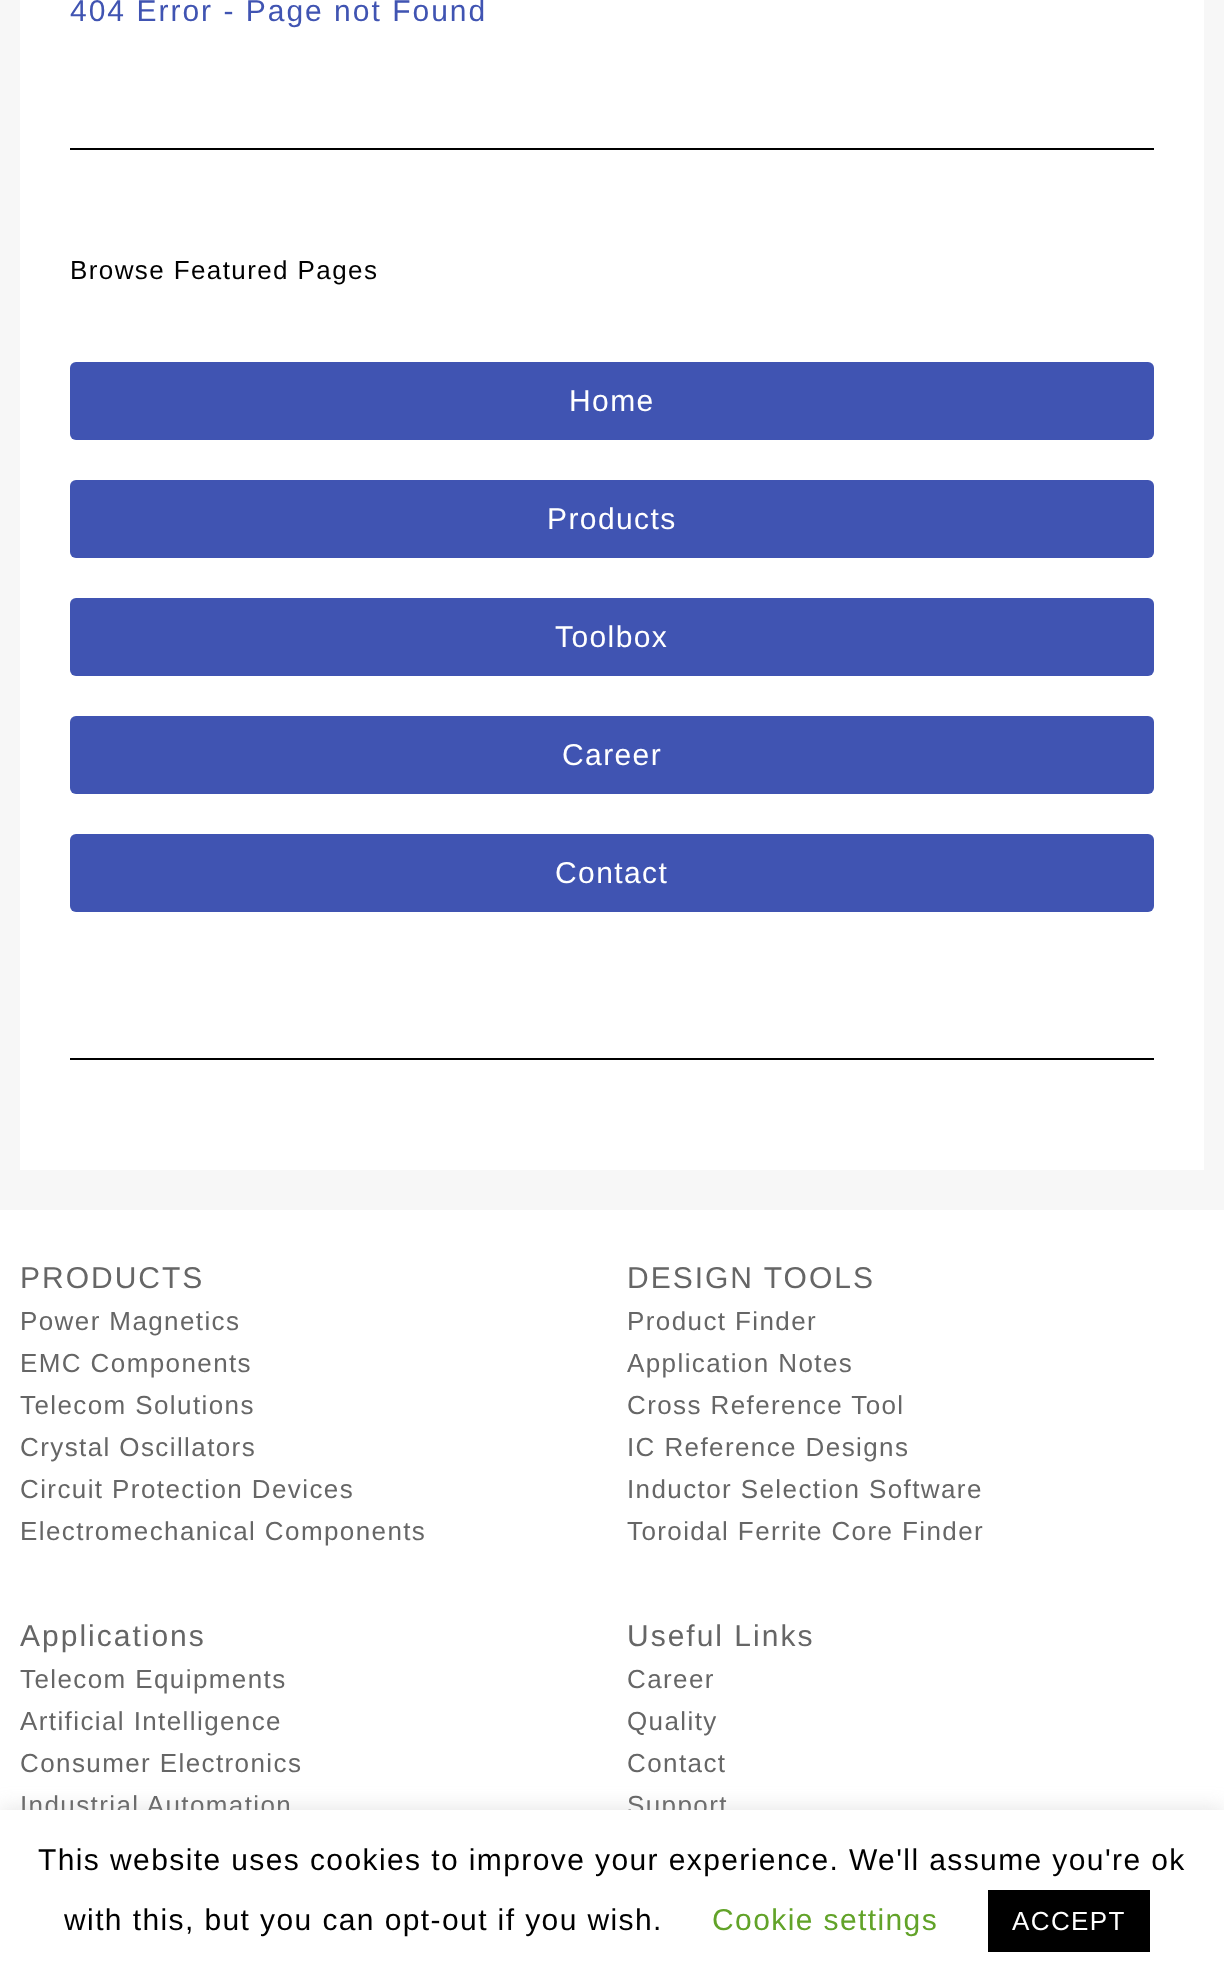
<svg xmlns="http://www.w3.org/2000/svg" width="1224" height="1985">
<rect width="100%" height="100%" fill="#f7f7f7"/>
<rect x="20" width="1184" height="1170" fill="#fff"/>
<text x="70" y="21" style="font-family:Liberation Sans;font-size:30px;letter-spacing:2px;fill:#4054b2">404 Error - Page not Found</text>
<rect x="70" y="148" width="1084" height="2" fill="#000"/>
<text x="70" y="279" style="font-family:Liberation Sans;font-size:26px;letter-spacing:1.4px;fill:#000">Browse Featured Pages</text>
<rect x="70" y="362" width="1084" height="78" rx="6" fill="#4054b2"/>
<text x="569" y="411" style="font-family:Liberation Sans;font-size:30px;letter-spacing:1.4px;fill:#fff">Home</text>
<rect x="70" y="480" width="1084" height="78" rx="6" fill="#4054b2"/>
<text x="547" y="529" style="font-family:Liberation Sans;font-size:30px;letter-spacing:1.4px;fill:#fff">Products</text>
<rect x="70" y="598" width="1084" height="78" rx="6" fill="#4054b2"/>
<text x="555" y="647" style="font-family:Liberation Sans;font-size:30px;letter-spacing:1.4px;fill:#fff">Toolbox</text>
<rect x="70" y="716" width="1084" height="78" rx="6" fill="#4054b2"/>
<text x="562" y="765" style="font-family:Liberation Sans;font-size:30px;letter-spacing:1.4px;fill:#fff">Career</text>
<rect x="70" y="834" width="1084" height="78" rx="6" fill="#4054b2"/>
<text x="555" y="883" style="font-family:Liberation Sans;font-size:30px;letter-spacing:1.4px;fill:#fff">Contact</text>
<rect x="70" y="1058" width="1084" height="2" fill="#000"/>
<rect y="1210" width="1224" height="600" fill="#fff"/>
<text x="20" y="1288" style="font-family:Liberation Sans;font-size:30px;letter-spacing:2px;fill:#666">PRODUCTS</text>
<text x="20" y="1330" style="font-family:Liberation Sans;font-size:26px;letter-spacing:1.4px;fill:#666">Power Magnetics</text>
<text x="20" y="1372" style="font-family:Liberation Sans;font-size:26px;letter-spacing:1.4px;fill:#666">EMC Components</text>
<text x="20" y="1414" style="font-family:Liberation Sans;font-size:26px;letter-spacing:1.4px;fill:#666">Telecom Solutions</text>
<text x="20" y="1456" style="font-family:Liberation Sans;font-size:26px;letter-spacing:1.4px;fill:#666">Crystal Oscillators</text>
<text x="20" y="1498" style="font-family:Liberation Sans;font-size:26px;letter-spacing:1.4px;fill:#666">Circuit Protection Devices</text>
<text x="20" y="1540" style="font-family:Liberation Sans;font-size:26px;letter-spacing:1.4px;fill:#666">Electromechanical Components</text>
<text x="627" y="1288" style="font-family:Liberation Sans;font-size:30px;letter-spacing:2px;fill:#666">DESIGN TOOLS</text>
<text x="627" y="1330" style="font-family:Liberation Sans;font-size:26px;letter-spacing:1.4px;fill:#666">Product Finder</text>
<text x="627" y="1372" style="font-family:Liberation Sans;font-size:26px;letter-spacing:1.4px;fill:#666">Application Notes</text>
<text x="627" y="1414" style="font-family:Liberation Sans;font-size:26px;letter-spacing:1.4px;fill:#666">Cross Reference Tool</text>
<text x="627" y="1456" style="font-family:Liberation Sans;font-size:26px;letter-spacing:1.4px;fill:#666">IC Reference Designs</text>
<text x="627" y="1498" style="font-family:Liberation Sans;font-size:26px;letter-spacing:1.4px;fill:#666">Inductor Selection Software</text>
<text x="627" y="1540" style="font-family:Liberation Sans;font-size:26px;letter-spacing:1.4px;fill:#666">Toroidal Ferrite Core Finder</text>
<text x="20" y="1646" style="font-family:Liberation Sans;font-size:30px;letter-spacing:2px;fill:#666">Applications</text>
<text x="20" y="1688" style="font-family:Liberation Sans;font-size:26px;letter-spacing:1.4px;fill:#666">Telecom Equipments</text>
<text x="20" y="1730" style="font-family:Liberation Sans;font-size:26px;letter-spacing:1.4px;fill:#666">Artificial Intelligence</text>
<text x="20" y="1772" style="font-family:Liberation Sans;font-size:26px;letter-spacing:1.4px;fill:#666">Consumer Electronics</text>
<text x="20" y="1814" style="font-family:Liberation Sans;font-size:26px;letter-spacing:1.4px;fill:#666">Industrial Automation</text>
<text x="627" y="1646" style="font-family:Liberation Sans;font-size:30px;letter-spacing:2px;fill:#666">Useful Links</text>
<text x="627" y="1688" style="font-family:Liberation Sans;font-size:26px;letter-spacing:1.4px;fill:#666">Career</text>
<text x="627" y="1730" style="font-family:Liberation Sans;font-size:26px;letter-spacing:1.4px;fill:#666">Quality</text>
<text x="627" y="1772" style="font-family:Liberation Sans;font-size:26px;letter-spacing:1.4px;fill:#666">Contact</text>
<text x="627" y="1814" style="font-family:Liberation Sans;font-size:26px;letter-spacing:1.4px;fill:#666">Support</text>
<rect y="1808" width="1224" height="176" fill="#acabab4d" filter="blur(10px)"/>
<rect y="1810" width="1224" height="175" fill="#fff"/>
<text x="38" y="1870" style="font-family:Liberation Sans;font-size:30px;letter-spacing:1.4px;fill:#000">This website uses cookies to improve your experience. We'll assume you're ok</text>
<text x="64" y="1930" style="font-family:Liberation Sans;font-size:30px;letter-spacing:1.4px;fill:#000">with this, but you can opt-out if you wish.</text>
<text x="712" y="1930" style="font-family:Liberation Sans;font-size:30px;letter-spacing:1.4px;fill:#62a329">Cookie settings</text>
<rect x="988" y="1890" width="162" height="62" fill="#000"/>
<text x="1012" y="1930" style="font-family:Liberation Sans;font-size:26px;letter-spacing:1.4px;fill:#fff">ACCEPT</text>
</svg>
